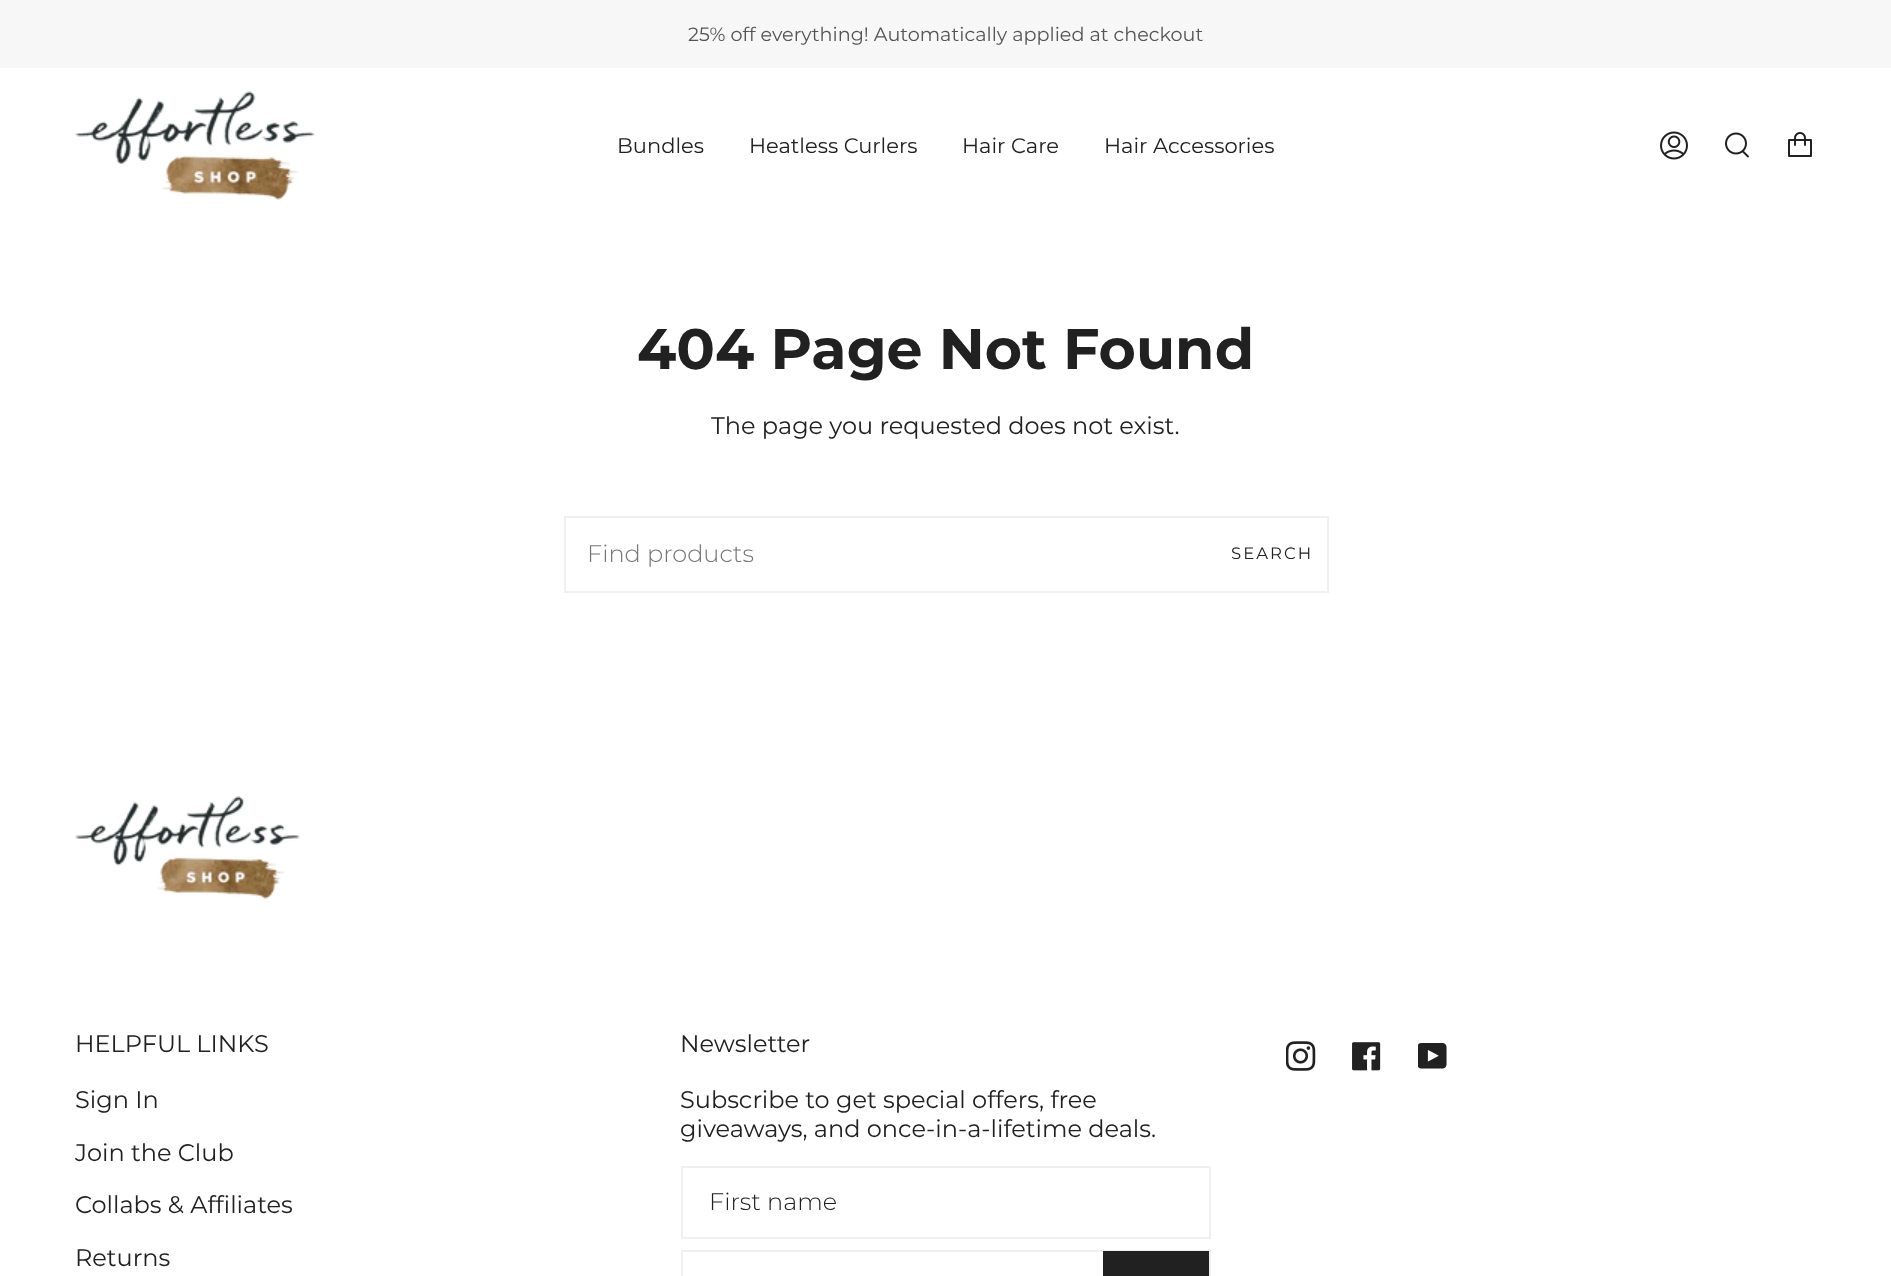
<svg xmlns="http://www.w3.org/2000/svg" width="1891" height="1276">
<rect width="100%" height="100%" fill="#fff"/>
<rect width="1891" height="68" fill="#f7f7f7"/>
<text x="688" y="41" style="font-family:Montserrat;font-size:19.2px;fill:#545454">25% off everything! Automatically applied at checkout</text>
<image x="75" y="91" width="240" height="109" href="media/1.png"/>
<text x="617" y="153" style="font-family:Montserrat;font-size:21px;fill:#212121">Bundles</text>
<text x="749" y="153" style="font-family:Montserrat;font-size:21px;fill:#212121">Heatless Curlers</text>
<text x="962" y="153" style="font-family:Montserrat;font-size:21px;fill:#212121">Hair Care</text>
<text x="1104" y="153" style="font-family:Montserrat;font-size:21px;fill:#212121">Hair Accessories</text>
<image x="1660" y="131" width="28" height="29" href="media/2.png"/>
<image x="1725" y="132" width="24" height="26" href="media/3.png"/>
<image x="1788" y="132" width="24" height="25" href="media/4.png"/>
<text x="637" y="369" style="font-family:Montserrat;font-size:57px;font-weight:bold;fill:#212121">404 Page Not Found</text>
<text x="711" y="434" style="font-family:Montserrat;font-size:24px;fill:#212121">The page you requested does not exist.</text>
<rect x="565" y="517" width="763" height="75" fill="none" stroke="#f0f0f0" stroke-width="2"/>
<text x="587" y="562" style="font-family:Montserrat;font-size:24px;font-weight:300;fill:#757575">Find products</text>
<text x="1231" y="559" style="font-family:Montserrat;font-size:16.5px;letter-spacing:2px;fill:#212121">SEARCH</text>
<image x="75" y="796" width="225" height="103" href="media/5.png"/>
<text x="75" y="1052" style="font-family:Montserrat;font-size:24px;fill:#212121">HELPFUL LINKS</text>
<text x="75" y="1108" style="font-family:Montserrat;font-size:24px;fill:#212121">Sign In</text>
<text x="75" y="1161" style="font-family:Montserrat;font-size:24px;fill:#212121">Join the Club</text>
<text x="75" y="1213" style="font-family:Montserrat;font-size:24px;fill:#212121">Collabs &amp; Affiliates</text>
<text x="75" y="1266" style="font-family:Montserrat;font-size:24px;fill:#212121">Returns</text>
<text x="680" y="1052" style="font-family:Montserrat;font-size:24px;fill:#212121">Newsletter</text>
<text x="680" y="1108" style="font-family:Montserrat;font-size:24px;fill:#212121">Subscribe to get special offers, free</text>
<text x="680" y="1137" style="font-family:Montserrat;font-size:24px;fill:#212121">giveaways, and once-in-a-lifetime deals.</text>
<rect x="682" y="1167" width="528" height="71" fill="none" stroke="#f0f0f0" stroke-width="2"/>
<text x="709" y="1210" style="font-family:Montserrat;font-size:24px;font-weight:300;fill:#212121">First name</text>
<rect x="682" y="1251" width="528" height="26" fill="none" stroke="#f0f0f0" stroke-width="2"/>
<rect x="1103" y="1251" width="106" height="25" fill="#212121"/>
<image x="1286" y="1041" width="30" height="30" href="media/6.png"/>
<image x="1352" y="1042" width="29" height="29" href="media/7.png"/>
<image x="1418" y="1043" width="29" height="26" href="media/8.png"/>
</svg>
